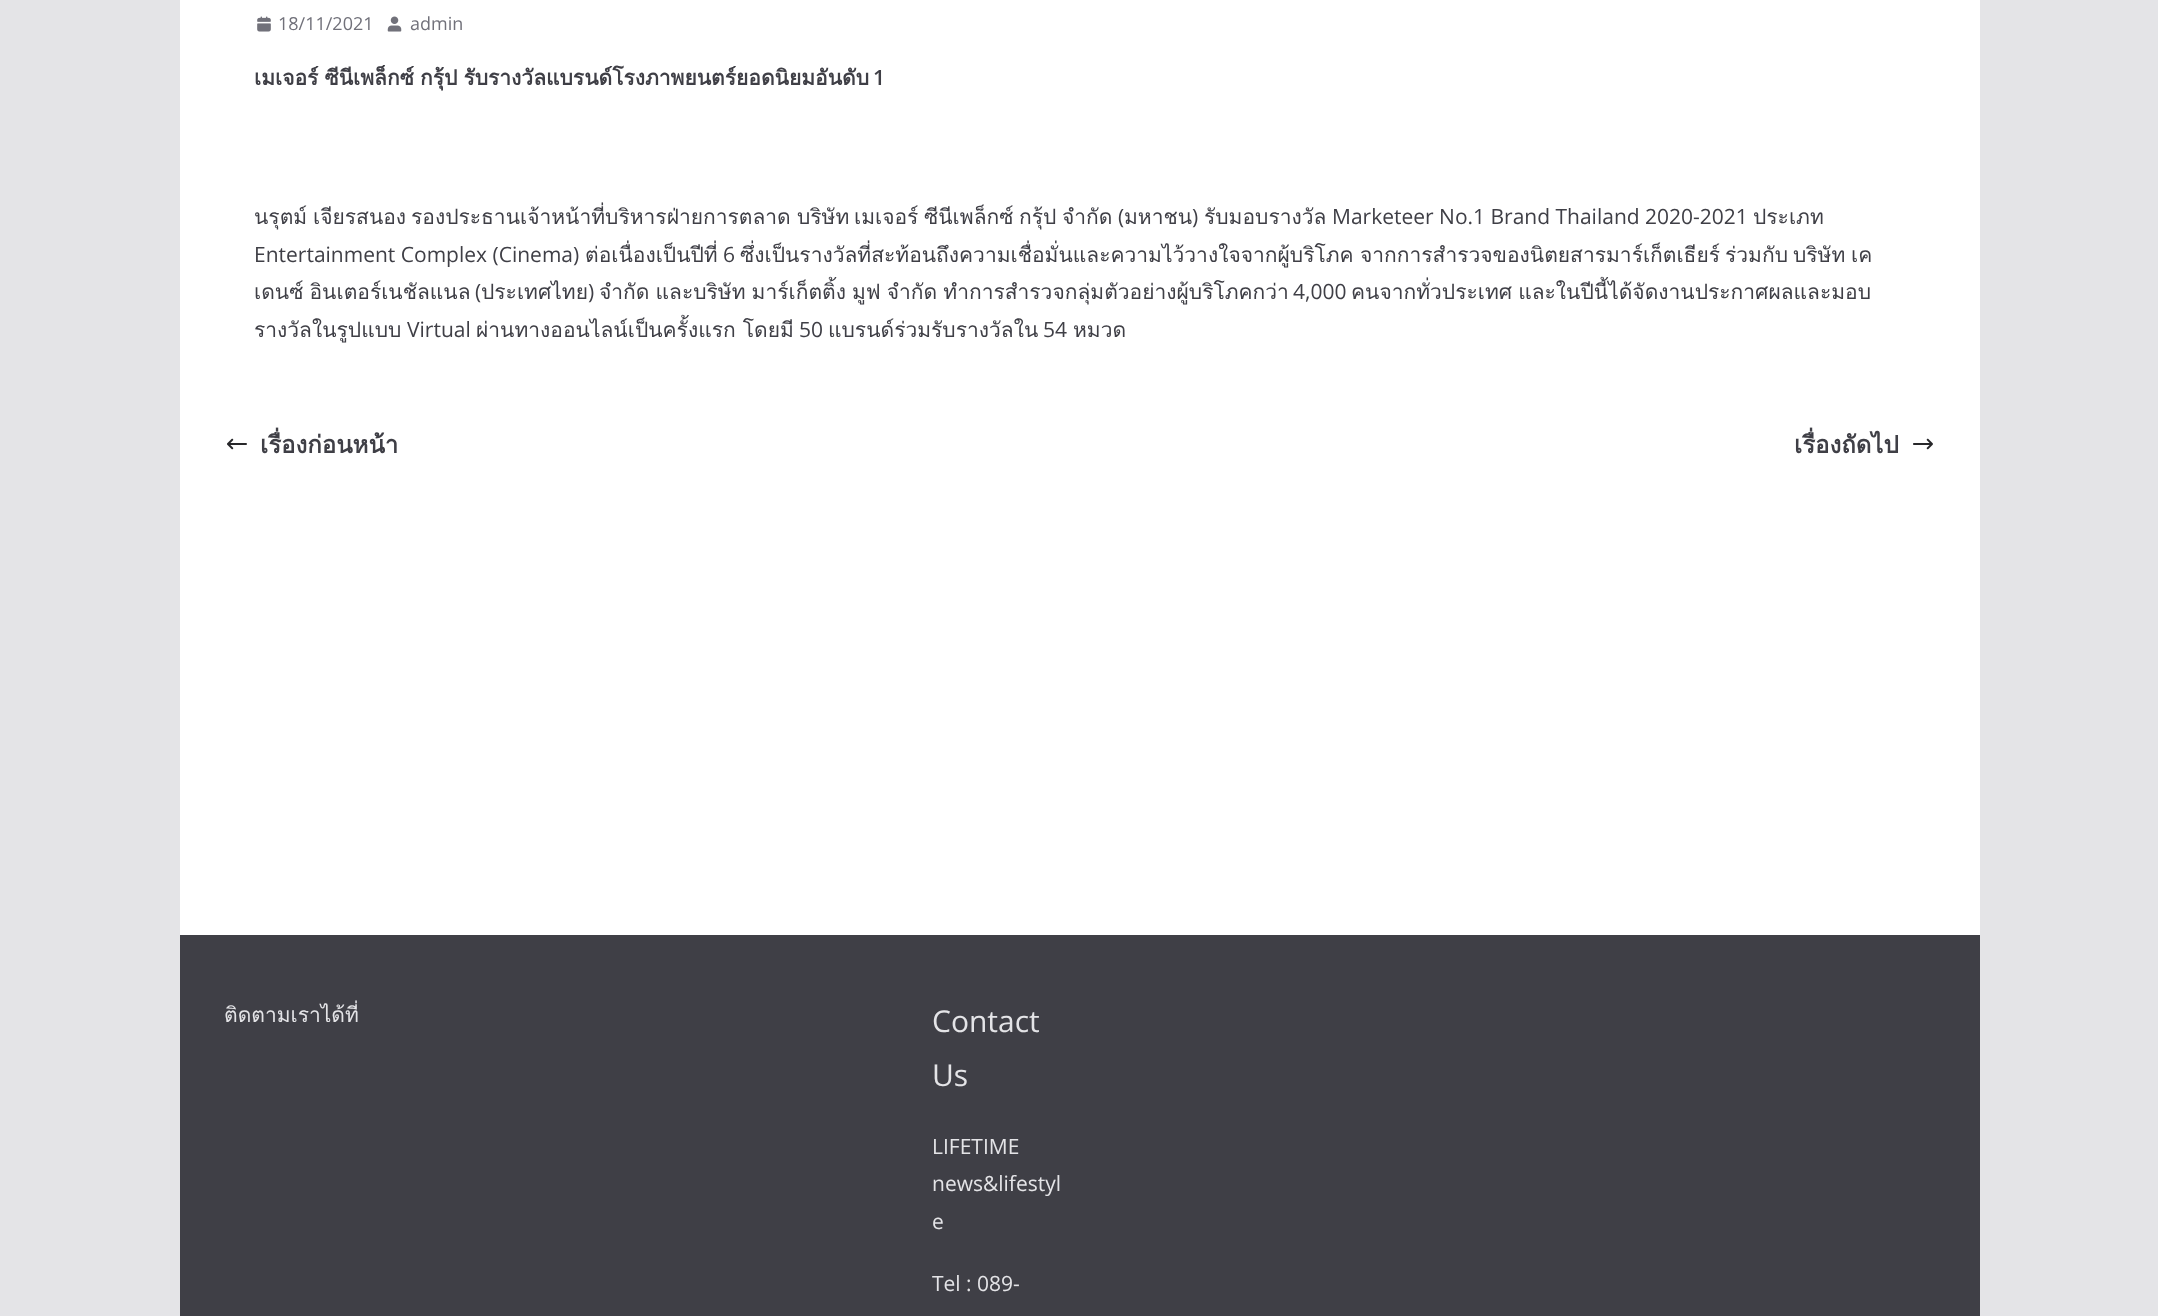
<svg xmlns="http://www.w3.org/2000/svg" width="2158" height="1316">
<rect width="100%" height="100%" fill="#e4e4e7"/>
<rect x="180" width="1800" height="935" fill="#fff"/>
<image x="257" y="16" width="14" height="16" href="media/1.png"/>
<text x="278" y="30" style="font-family:Open Sans;font-size:18px;fill:#71717a">18/11/2021</text>
<image x="387" y="16" width="15" height="16" href="media/2.png"/>
<text x="410" y="30" style="font-family:Open Sans;font-size:18px;fill:#71717a">admin</text>
<text x="254" y="85" word-spacing="-1" style="font-family:Loma;font-size:21px;font-weight:bold;fill:#3f3f46">เมเจอร์ ซีนีเพล็กซ์ กรุ้ป รับรางวัลแบรนด์โรงภาพยนตร์ยอดนิยมอันดับ</text>
<text x="873" y="85" style="font-family:Open Sans;font-size:21px;font-weight:600;fill:#3f3f46">1</text>
<text x="254" y="224" style="font-family:Loma;font-size:21px;fill:#3f3f46">นรุตม์</text>
<text x="313" y="224" style="font-family:Loma;font-size:21px;fill:#3f3f46">เจียรสนอง</text>
<text x="411" y="224" style="font-family:Loma;font-size:21px;fill:#3f3f46">รองประธานเจ้าหน้าที่บริหารฝ่ายการตลาด</text>
<text x="797" y="224" style="font-family:Loma;font-size:21px;fill:#3f3f46">บริษัท</text>
<text x="854" y="224" style="font-family:Loma;font-size:21px;fill:#3f3f46">เมเจอร์</text>
<text x="924" y="224" style="font-family:Loma;font-size:21px;fill:#3f3f46">ซีนีเพล็กซ์</text>
<text x="1019" y="224" style="font-family:Loma;font-size:21px;fill:#3f3f46">กรุ้ป</text>
<text x="1062" y="224" style="font-family:Loma;font-size:21px;fill:#3f3f46">จำกัด</text>
<text x="1118" y="224" style="font-family:Open Sans;font-size:21px;fill:#3f3f46">(</text>
<text x="1192" y="224" style="font-family:Open Sans;font-size:21px;fill:#3f3f46">)</text>
<text x="1204" y="224" style="font-family:Loma;font-size:21px;fill:#3f3f46">รับมอบรางวัล</text>
<text x="1332" y="224" style="font-family:Open Sans;font-size:21px;fill:#3f3f46">Marketeer No.1 Brand Thailand 2020-2021</text>
<text x="1753" y="224" style="font-family:Loma;font-size:21px;fill:#3f3f46">ประเภท</text>
<text x="1124" y="224" style="font-family:Loma;font-size:21px;fill:#3f3f46">มหาชน</text>
<text x="254" y="262" style="font-family:Open Sans;font-size:21px;fill:#3f3f46">Entertainment Complex (Cinema)</text>
<text x="585" y="262" style="font-family:Loma;font-size:21px;fill:#3f3f46">ต่อเนื่องเป็นปีที่</text>
<text x="723" y="262" style="font-family:Open Sans;font-size:21px;fill:#3f3f46">6</text>
<text x="740" y="262" style="font-family:Loma;font-size:21px;fill:#3f3f46">ซึ่งเป็นรางวัลที่สะท้อนถึงความเชื่อมั่นและความไว้วางใจจากผู้บริโภค</text>
<text x="1360" y="262" style="font-family:Loma;font-size:21px;fill:#3f3f46">จากการสำรวจของนิตยสารมาร์เก็ตเธียร์</text>
<text x="1725" y="262" style="font-family:Loma;font-size:21px;fill:#3f3f46">ร่วมกับ</text>
<text x="1793" y="262" style="font-family:Loma;font-size:21px;fill:#3f3f46">บริษัท</text>
<text x="1851" y="262" style="font-family:Loma;font-size:21px;fill:#3f3f46">เค</text>
<text x="254" y="299" word-spacing="-1" style="font-family:Loma;font-size:21px;fill:#3f3f46">เดนซ์ อินเตอร์เนชัลแนล</text>
<text x="475" y="299" style="font-family:Open Sans;font-size:21px;fill:#3f3f46">(</text>
<text x="481" y="299" style="font-family:Loma;font-size:21px;fill:#3f3f46">ประเทศไทย</text>
<text x="588" y="299" style="font-family:Open Sans;font-size:21px;fill:#3f3f46">)</text>
<text x="599" y="299" word-spacing="-1" style="font-family:Loma;font-size:21px;fill:#3f3f46">จำกัด และบริษัท มาร์เก็ตติ้ง มูฟ จำกัด ทำการสำรวจกลุ่มตัวอย่างผู้บริโภคกว่า</text>
<text x="1293" y="299" style="font-family:Open Sans;font-size:21px;fill:#3f3f46">4,000</text>
<text x="1351" y="299" word-spacing="-1" style="font-family:Loma;font-size:21px;fill:#3f3f46">คนจากทั่วประเทศ และในปีนี้ได้จัดงานประกาศผลและมอบ</text>
<text x="254" y="337" style="font-family:Loma;font-size:21px;fill:#3f3f46">รางวัลในรูปแบบ</text>
<text x="407" y="337" style="font-family:Open Sans;font-size:21px;fill:#3f3f46">Virtual</text>
<text x="476" y="337" style="font-family:Loma;font-size:21px;fill:#3f3f46">ผ่านทางออนไลน์เป็นครั้งแรก โดยมี</text>
<text x="799" y="337" style="font-family:Open Sans;font-size:21px;fill:#3f3f46">50</text>
<text x="828" y="337" style="font-family:Loma;font-size:21px;fill:#3f3f46">แบรนด์ร่วมรับรางวัลใน</text>
<text x="1043" y="337" style="font-family:Open Sans;font-size:21px;fill:#3f3f46">54</text>
<text x="1073" y="337" style="font-family:Loma;font-size:21px;fill:#3f3f46">หมวด</text>
<image x="227" y="438" width="20" height="12" href="media/3.png"/>
<text x="260" y="453" style="font-family:Loma;font-size:24px;font-weight:bold;fill:#3f3f46">เรื่องก่อนหน้า</text>
<text x="1794" y="453" style="font-family:Loma;font-size:24px;font-weight:bold;fill:#3f3f46">เรื่องถัดไป</text>
<image x="1913" y="438" width="20" height="12" href="media/4.png"/>
<rect x="180" y="935" width="1800" height="381" fill="#3f3f46"/>
<text x="224" y="1022" style="font-family:Loma;font-size:21px;fill:#e4e4e7">ติดตามเราได้ที่</text>
<text x="932" y="1032" style="font-family:Open Sans;font-size:30px;fill:#e4e4e7">Contact</text>
<text x="932" y="1086" style="font-family:Open Sans;font-size:30px;fill:#e4e4e7">Us</text>
<text x="932" y="1154" style="font-family:Open Sans;font-size:21px;fill:#e4e4e7">LIFETIME</text>
<text x="932" y="1191" style="font-family:Open Sans;font-size:21px;fill:#e4e4e7">news&amp;lifestyl</text>
<text x="932" y="1229" style="font-family:Open Sans;font-size:21px;fill:#e4e4e7">e</text>
<text x="932" y="1291" style="font-family:Open Sans;font-size:21px;fill:#e4e4e7">Tel : 089-</text>
</svg>
